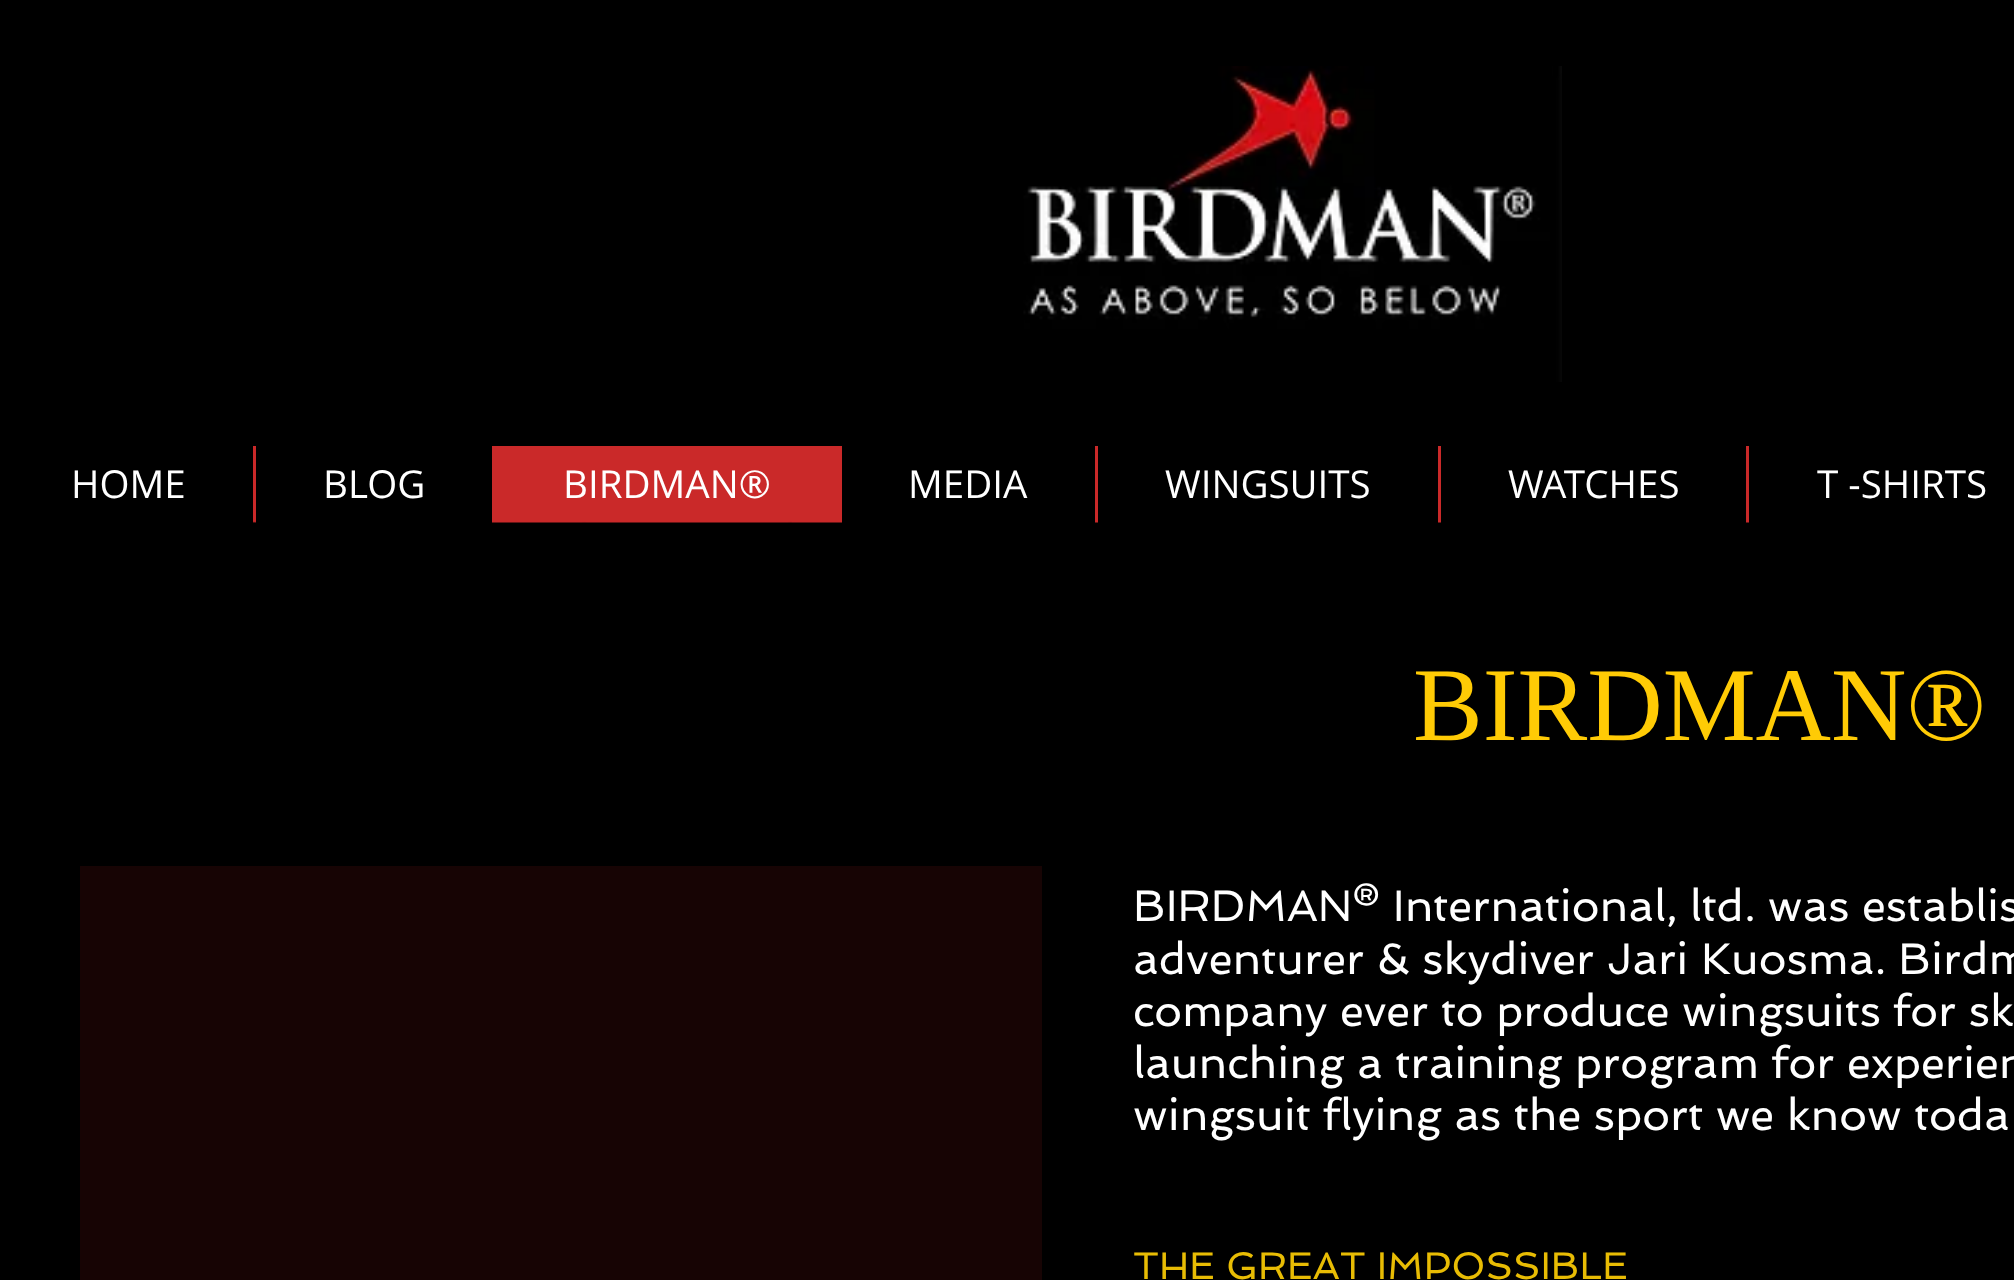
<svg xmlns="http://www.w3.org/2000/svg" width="2014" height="1280">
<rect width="100%" height="100%" fill="#000"/>
<image x="1023" y="66" width="539" height="316" href="media/1.png"/>
<text x="71" y="498" style="font-family:Open Sans;font-size:38.5px;fill:#fff">HOME</text>
<rect x="253" y="446" width="3" height="77" fill="#ca2929"/>
<rect x="253" y="522" width="3" height="1" fill="#651515"/>
<text x="323" y="498" style="font-family:Open Sans;font-size:38.5px;fill:#fff">BLOG</text>
<rect x="492" y="446" width="347" height="76" fill="#ca2929"/>
<rect x="492" y="522" width="347" height="1" fill="#651515"/>
<text x="563" y="498" style="font-family:Open Sans;font-size:38.5px;fill:#fff">BIRDMAN®</text>
<rect x="839" y="446" width="3" height="77" fill="#ca2929"/>
<rect x="839" y="522" width="3" height="1" fill="#651515"/>
<text x="908" y="498" style="font-family:Open Sans;font-size:38.5px;fill:#fff">MEDIA</text>
<rect x="1095" y="446" width="3" height="77" fill="#ca2929"/>
<rect x="1095" y="522" width="3" height="1" fill="#651515"/>
<text x="1165" y="498" style="font-family:Open Sans;font-size:38.5px;fill:#fff">WINGSUITS</text>
<rect x="1438" y="446" width="3" height="77" fill="#ca2929"/>
<rect x="1438" y="522" width="3" height="1" fill="#651515"/>
<text x="1508" y="498" style="font-family:Open Sans;font-size:38.5px;fill:#fff">WATCHES</text>
<rect x="1746" y="446" width="3" height="77" fill="#ca2929"/>
<rect x="1746" y="522" width="3" height="1" fill="#651515"/>
<text x="1817" y="498" style="font-family:Open Sans;font-size:38.5px;fill:#fff">T -SHIRTS</text>
<image x="253" y="521" width="539" height="2" href="media/2.png"/>
<rect x="80" y="866" width="962" height="414" fill="#170404"/>
<text x="1413" y="740" style="font-family:Liberation Serif;font-size:104.5px;fill:#ffcb05">BIRDMAN®</text>
<text x="1133" y="921" style="font-family:Spinnaker;font-size:44px;fill:#fff">BIRDMAN® International, ltd. was establis</text>
<text x="1133" y="974" style="font-family:Spinnaker;font-size:44px;fill:#fff">adventurer &amp; skydiver Jari Kuosma. Birdm</text>
<text x="1133" y="1026" style="font-family:Spinnaker;font-size:44px;fill:#fff">company ever to produce wingsuits for sk</text>
<text x="1133" y="1078" style="font-family:Spinnaker;font-size:44px;fill:#fff">launching a training program for experien</text>
<text x="1133" y="1130" style="font-family:Spinnaker;font-size:44px;fill:#fff">wingsuit flying as the sport we know toda</text>
<text x="1133" y="1279" style="font-family:Spinnaker;font-size:38.5px;fill:#e8bc04">THE GREAT IMPOSSIBLE</text>
</svg>
